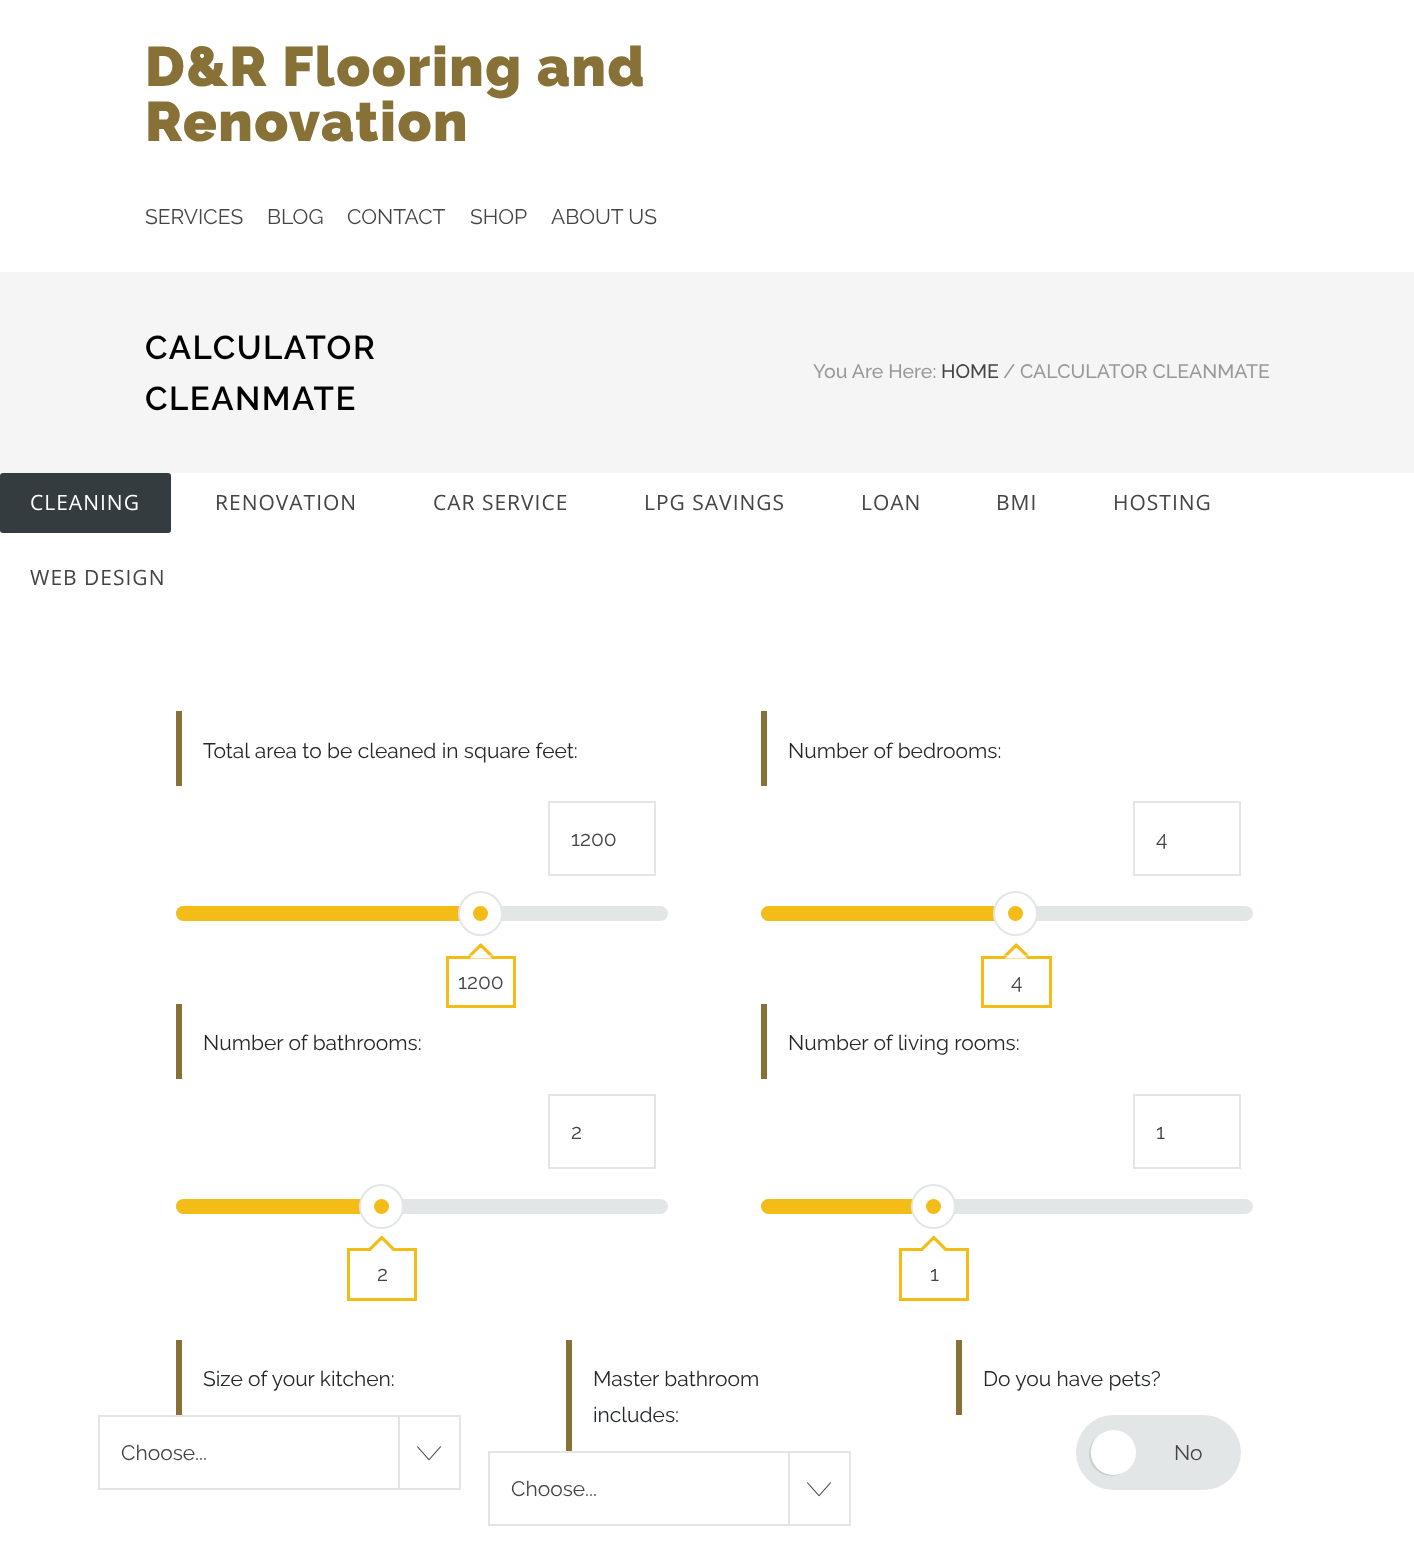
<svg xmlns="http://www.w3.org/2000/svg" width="1414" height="1563">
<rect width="100%" height="100%" fill="#fff"/>
<text x="145" y="86" style="font-family:Raleway;font-size:55.5px;font-weight:900;letter-spacing:1.5px;fill:#877136">D&amp;R Flooring and</text>
<text x="145" y="141" style="font-family:Raleway;font-size:55.5px;font-weight:900;letter-spacing:1.5px;fill:#877136">Renovation</text>
<text x="145" y="224" style="font-family:Raleway;font-size:21px;fill:#444">SERVICES</text>
<text x="267" y="224" style="font-family:Raleway;font-size:21px;fill:#444">BLOG</text>
<text x="347" y="224" style="font-family:Raleway;font-size:21px;fill:#444">CONTACT</text>
<text x="470" y="224" style="font-family:Raleway;font-size:21px;fill:#444">SHOP</text>
<text x="551" y="224" style="font-family:Raleway;font-size:21px;fill:#444">ABOUT US</text>
<rect y="272" width="1414" height="201" fill="#f5f5f5"/>
<text x="145" y="359" style="font-family:Raleway;font-size:33px;font-weight:600;letter-spacing:1.5px;fill:#000">CALCULATOR</text>
<text x="145" y="410" style="font-family:Raleway;font-size:33px;font-weight:600;letter-spacing:1.5px;fill:#000">CLEANMATE</text>
<text x="813" y="378" style="font-family:Raleway;font-size:19.5px;font-weight:500;fill:#999">You Are Here:</text>
<text x="941" y="378" style="font-family:Raleway;font-size:19.5px;font-weight:500;fill:#444">HOME</text>
<text x="1003" y="378" style="font-family:Raleway;font-size:19.5px;font-weight:500;fill:#999">/</text>
<text x="1020" y="378" style="font-family:Raleway;font-size:19.5px;font-weight:500;fill:#999">CALCULATOR CLEANMATE</text>
<rect y="473" width="171" height="60" rx="3" fill="#353c40"/>
<text x="30" y="510" style="font-family:Open Sans;font-size:21px;letter-spacing:1px;fill:#fff">CLEANING</text>
<text x="215" y="510" style="font-family:Open Sans;font-size:21px;letter-spacing:1px;fill:#444">RENOVATION</text>
<text x="433" y="510" style="font-family:Open Sans;font-size:21px;letter-spacing:1px;fill:#444">CAR SERVICE</text>
<text x="644" y="510" style="font-family:Open Sans;font-size:21px;letter-spacing:1px;fill:#444">LPG SAVINGS</text>
<text x="861" y="510" style="font-family:Open Sans;font-size:21px;letter-spacing:1px;fill:#444">LOAN</text>
<text x="996" y="510" style="font-family:Open Sans;font-size:21px;letter-spacing:1px;fill:#444">BMI</text>
<text x="1113" y="510" style="font-family:Open Sans;font-size:21px;letter-spacing:1px;fill:#444">HOSTING</text>
<text x="30" y="585" style="font-family:Open Sans;font-size:21px;letter-spacing:1px;fill:#444">WEB DESIGN</text>
<rect x="176" y="711" width="6" height="75" fill="#877136"/>
<text x="203" y="758" style="font-family:Raleway;font-size:21px;fill:#25282a">Total area to be cleaned in square feet:</text>
<rect x="549" y="802" width="106" height="73" fill="none" stroke="#e2e6e7" stroke-width="2"/>
<text x="571" y="846" style="font-family:Raleway;font-size:21px;fill:#444">1200</text>
<rect x="176" y="906" width="492" height="15" rx="7.5" fill="#e2e6e7"/>
<rect x="176" y="906" width="294" height="15" rx="7.5" fill="#f4bc16"/>
<circle cx="480.5" cy="913.5" r="21.5" fill="#fff" stroke="#e2e6e7" stroke-width="2"/>
<circle cx="480.5" cy="913.5" r="7.5" fill="#f4bc16"/>
<path d="M493.5 955.5h-25.5l12-12h1.5z" fill="#f4bc16"/>
<rect x="447.5" y="957.5" width="67" height="49" fill="none" stroke="#f4bc16" stroke-width="3"/>
<path d="M492 958.5h-22.5l10.5-10.5h1.5z" fill="#fff"/>
<text x="458" y="989" style="font-family:Raleway;font-size:21px;fill:#444">1200</text>
<rect x="176" y="1004" width="6" height="75" fill="#877136"/>
<text x="203" y="1050" style="font-family:Raleway;font-size:21px;fill:#25282a">Number of bathrooms:</text>
<rect x="549" y="1095" width="106" height="73" fill="none" stroke="#e2e6e7" stroke-width="2"/>
<text x="571" y="1139" style="font-family:Raleway;font-size:21px;fill:#444">2</text>
<rect x="176" y="1199" width="492" height="15" rx="7.5" fill="#e2e6e7"/>
<rect x="176" y="1199" width="196" height="15" rx="7.5" fill="#f4bc16"/>
<circle cx="381.5" cy="1206.5" r="21.5" fill="#fff" stroke="#e2e6e7" stroke-width="2"/>
<circle cx="381.5" cy="1206.5" r="7.5" fill="#f4bc16"/>
<path d="M394.5 1248h-25.5l12-12h1.5z" fill="#f4bc16"/>
<rect x="348.5" y="1249.5" width="67" height="50" fill="none" stroke="#f4bc16" stroke-width="3"/>
<path d="M393 1251h-22.5l10.5-10.5h1.5z" fill="#fff"/>
<text x="377" y="1281" style="font-family:Raleway;font-size:21px;fill:#444">2</text>
<rect x="761" y="711" width="6" height="75" fill="#877136"/>
<text x="788" y="758" style="font-family:Raleway;font-size:21px;fill:#25282a">Number of bedrooms:</text>
<rect x="1134" y="802" width="106" height="73" fill="none" stroke="#e2e6e7" stroke-width="2"/>
<text x="1156" y="846" style="font-family:Raleway;font-size:21px;fill:#444">4</text>
<rect x="761" y="906" width="492" height="15" rx="7.5" fill="#e2e6e7"/>
<rect x="761" y="906" width="246" height="15" rx="7.5" fill="#f4bc16"/>
<circle cx="1015.5" cy="913.5" r="21.5" fill="#fff" stroke="#e2e6e7" stroke-width="2"/>
<circle cx="1015.5" cy="913.5" r="7.5" fill="#f4bc16"/>
<path d="M1029 955.5h-25.5l12-12h1.5z" fill="#f4bc16"/>
<rect x="982.5" y="957.5" width="68" height="49" fill="none" stroke="#f4bc16" stroke-width="3"/>
<path d="M1027.5 958.5h-22.5l10.5-10.5h1.5z" fill="#fff"/>
<text x="1011" y="989" style="font-family:Raleway;font-size:21px;fill:#444">4</text>
<rect x="761" y="1004" width="6" height="75" fill="#877136"/>
<text x="788" y="1050" style="font-family:Raleway;font-size:21px;fill:#25282a">Number of living rooms:</text>
<rect x="1134" y="1095" width="106" height="73" fill="none" stroke="#e2e6e7" stroke-width="2"/>
<text x="1156" y="1139" style="font-family:Raleway;font-size:21px;fill:#444">1</text>
<rect x="761" y="1199" width="492" height="15" rx="7.5" fill="#e2e6e7"/>
<rect x="761" y="1199" width="163" height="15" rx="7.5" fill="#f4bc16"/>
<circle cx="933.5" cy="1206.5" r="21.5" fill="#fff" stroke="#e2e6e7" stroke-width="2"/>
<circle cx="933.5" cy="1206.5" r="7.5" fill="#f4bc16"/>
<path d="M946.5 1248h-25.5l12-12h1.5z" fill="#f4bc16"/>
<rect x="900.5" y="1249.5" width="67" height="50" fill="none" stroke="#f4bc16" stroke-width="3"/>
<path d="M945 1251h-22.5l10.5-10.5h1.5z" fill="#fff"/>
<text x="930" y="1281" style="font-family:Raleway;font-size:21px;fill:#444">1</text>
<rect x="176" y="1340" width="6" height="75" fill="#877136"/>
<text x="203" y="1386" style="font-family:Raleway;font-size:21px;fill:#25282a">Size of your kitchen:</text>
<rect x="99" y="1416" width="361" height="73" fill="none" stroke="#e2e6e7" stroke-width="2"/>
<text x="121" y="1460" style="font-family:Raleway;font-size:21px;fill:#444">Choose...</text>
<rect x="398" y="1416" width="2" height="72" fill="#e2e6e7"/>
<image x="417" y="1446" width="24" height="15" href="media/1.png"/>
<rect x="566" y="1340" width="6" height="111" fill="#877136"/>
<text x="593" y="1386" style="font-family:Raleway;font-size:21px;fill:#25282a">Master bathroom</text>
<text x="593" y="1422" style="font-family:Raleway;font-size:21px;fill:#25282a">includes:</text>
<rect x="489" y="1452" width="361" height="73" fill="none" stroke="#e2e6e7" stroke-width="2"/>
<text x="511" y="1496" style="font-family:Raleway;font-size:21px;fill:#444">Choose...</text>
<rect x="788" y="1452" width="2" height="72" fill="#e2e6e7"/>
<image x="807" y="1482" width="24" height="15" href="media/1.png"/>
<rect x="956" y="1340" width="6" height="75" fill="#877136"/>
<text x="983" y="1386" style="font-family:Raleway;font-size:21px;fill:#25282a">Do you have pets?</text>
<rect x="1076" y="1415" width="165" height="75" rx="37.5" fill="#e2e6e7"/>
<path d="M1096.5 1437c-9.5 8.5-10 23.5-1 32.5c9 9 24 8.5 32.5-1c-8.5 8-22.5 8-31-.5c-8.5-8.5-8.5-22.5-.5-31z" fill="#cbcfd0"/>
<circle cx="1113.5" cy="1452.5" r="22.5" fill="#fff"/>
<text x="1174" y="1460" style="font-family:Raleway;font-size:21px;fill:#444">No</text>
</svg>
